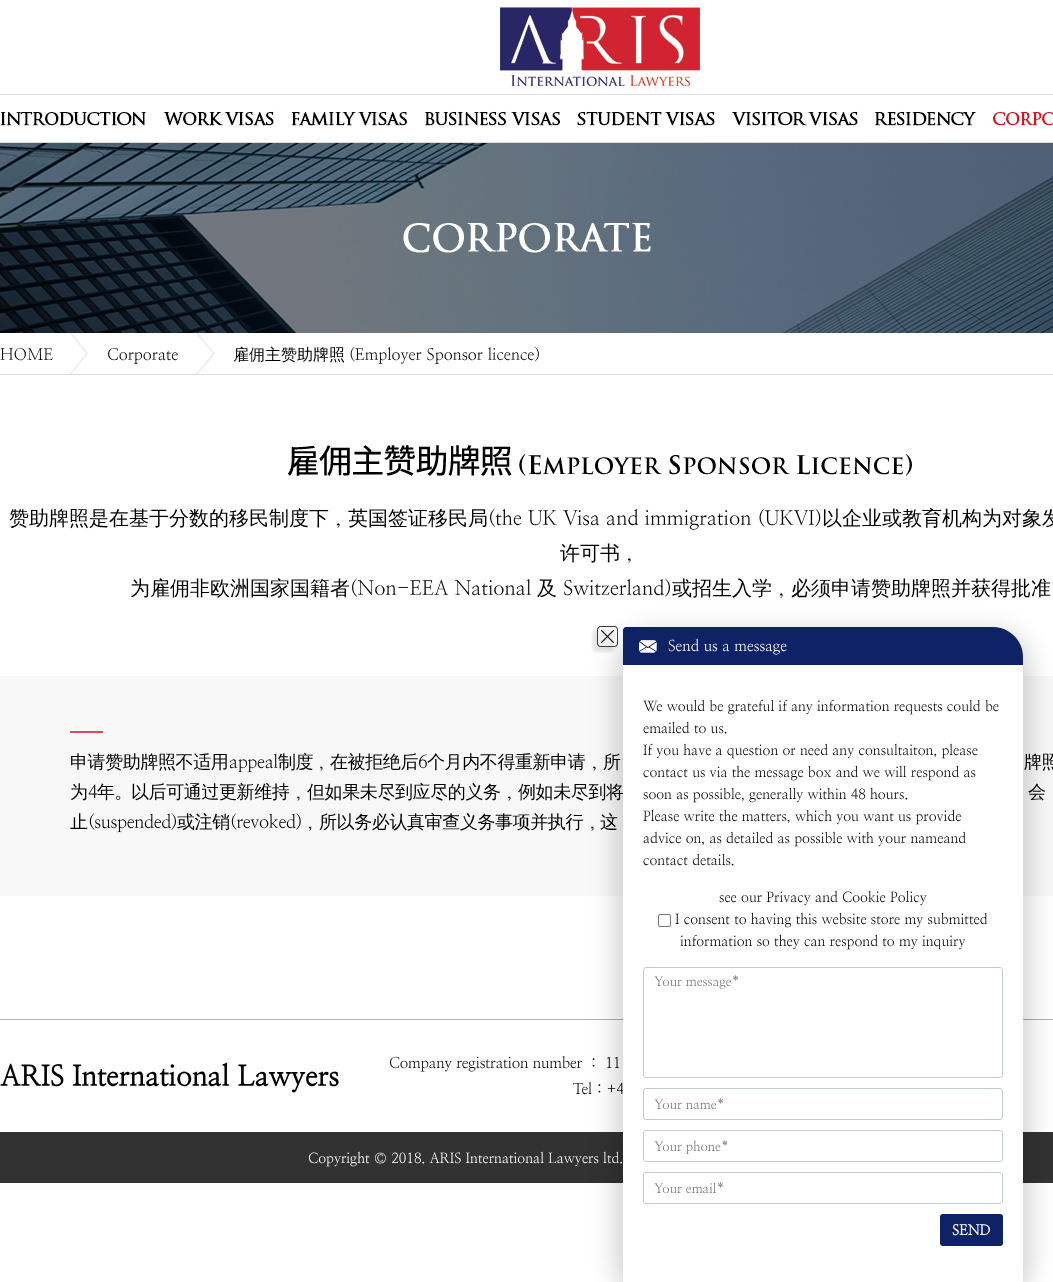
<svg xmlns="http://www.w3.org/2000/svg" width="1053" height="1282">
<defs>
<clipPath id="clip1"><path d="M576 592h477v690h-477zm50 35h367c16.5 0 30 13.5 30 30v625h-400v-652c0-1.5 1.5-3 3-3z" clip-rule="evenodd"/></clipPath>
</defs>
<rect width="100%" height="100%" fill="#fff"/>
<image x="500" y="7" width="200" height="79" href="media/1.png"/>
<rect y="94" width="1053" height="1" fill="#dcdcdc"/>
<rect y="142" width="1053" height="1" fill="#dcdcdc"/>
<image x="0" y="112" width="146" height="14" href="media/2.png"/>
<image x="163" y="111" width="111" height="15" href="media/3.png"/>
<image x="291" y="111" width="116" height="15" href="media/4.png"/>
<image x="424" y="111" width="136" height="15" href="media/5.png"/>
<image x="577" y="111" width="138" height="15" href="media/6.png"/>
<image x="732" y="111" width="126" height="15" href="media/7.png"/>
<image x="875" y="111" width="101" height="15" href="media/8.png"/>
<image x="993" y="112" width="60" height="14" href="media/9.png"/>
<image x="0" y="143" width="1053" height="190" href="media/10.png"/>
<image x="403" y="223" width="248" height="30" href="media/11.png"/>
<rect y="374" width="1053" height="1" fill="#dcdcdc"/>
<text x="0" y="360" style="font-family:NanumMyeongjo;font-size:16px;fill:#000">HOME</text>
<image x="70" y="333" width="18" height="41" href="media/12.png"/>
<text x="107" y="360" style="font-family:NanumMyeongjo;font-size:16px;fill:#000">Corporate</text>
<image x="196" y="333" width="19" height="41" href="media/13.png"/>
<text x="233" y="360" style="font-family:WenQuanYi Zen Hei;font-size:16px;font-weight:500;fill:#000">雇佣主赞助牌照</text>
<text x="349" y="360" style="font-family:NanumMyeongjo;font-size:16px;fill:#000">(Employer Sponsor licence)</text>
<image x="288" y="445" width="624" height="31" href="media/14.png"/>
<text x="9" y="525" style="font-family:WenQuanYi Zen Hei;font-size:20px;font-weight:500;fill:#000">赞助牌照是在基于分数的移民制度下</text>
<text x="329" y="525" style="font-family:NanumMyeongjo;font-size:20px;fill:#000">，</text>
<text x="348" y="525" style="font-family:WenQuanYi Zen Hei;font-size:20px;font-weight:500;fill:#000">英国签证移民局</text>
<text x="488" y="525" style="font-family:NanumMyeongjo;font-size:20px;fill:#000">(the UK Visa and immigration (UKVI)</text>
<text x="822" y="525" style="font-family:WenQuanYi Zen Hei;font-size:20px;font-weight:500;fill:#000">以企业或教育机构为对象发</text>
<text x="560" y="560" style="font-family:WenQuanYi Zen Hei;font-size:20px;font-weight:500;fill:#000">许可书</text>
<text x="620" y="560" style="font-family:NanumMyeongjo;font-size:20px;fill:#000">，</text>
<text x="130" y="595" style="font-family:WenQuanYi Zen Hei;font-size:20px;font-weight:500;fill:#000">为雇佣非欧洲国家国籍者</text>
<text x="350" y="595" style="font-family:NanumMyeongjo;font-size:20px;fill:#000">(Non-EEA National</text>
<text x="537" y="595" style="font-family:WenQuanYi Zen Hei;font-size:20px;font-weight:500;fill:#000">及</text>
<text x="563" y="595" style="font-family:NanumMyeongjo;font-size:20px;fill:#000">Switzerland)</text>
<text x="672" y="595" style="font-family:WenQuanYi Zen Hei;font-size:20px;font-weight:500;fill:#000">或招生入学</text>
<text x="772" y="595" style="font-family:NanumMyeongjo;font-size:20px;fill:#000">，</text>
<text x="791" y="595" style="font-family:WenQuanYi Zen Hei;font-size:20px;font-weight:500;fill:#000">必须申请赞助牌照并获得批准</text>
<rect y="676" width="1053" height="220" fill="#f8f8f8"/>
<rect x="70" y="731" width="33" height="2" fill="#df495f"/>
<text x="70" y="768" style="font-family:WenQuanYi Zen Hei;font-size:18px;font-weight:500;letter-spacing:-0.4px;fill:#000">申请赞助牌照不适用</text>
<text x="229" y="768" style="font-family:NanumMyeongjo;font-size:18px;letter-spacing:-0.4px;fill:#000">appeal</text>
<text x="278" y="768" style="font-family:WenQuanYi Zen Hei;font-size:18px;font-weight:500;letter-spacing:-0.4px;fill:#000">制度</text>
<text x="313" y="768" style="font-family:NanumMyeongjo;font-size:18px;letter-spacing:-0.4px;fill:#000">，</text>
<text x="330" y="768" style="font-family:WenQuanYi Zen Hei;font-size:18px;font-weight:500;letter-spacing:-0.4px;fill:#000">在被拒绝后</text>
<text x="418" y="768" style="font-family:NanumMyeongjo;font-size:18px;letter-spacing:-0.4px;fill:#000">6</text>
<text x="427" y="768" style="font-family:WenQuanYi Zen Hei;font-size:18px;font-weight:500;letter-spacing:-0.4px;fill:#000">个月内不得重新申请</text>
<text x="586" y="768" style="font-family:NanumMyeongjo;font-size:18px;letter-spacing:-0.4px;fill:#000">，</text>
<text x="603" y="768" style="font-family:WenQuanYi Zen Hei;font-size:18px;font-weight:500;letter-spacing:-0.4px;fill:#000">所</text>
<text x="1024" y="768" style="font-family:WenQuanYi Zen Hei;font-size:18px;font-weight:500;letter-spacing:-0.4px;fill:#000">牌照</text>
<text x="70" y="798" style="font-family:WenQuanYi Zen Hei;font-size:18px;font-weight:500;letter-spacing:-0.4px;fill:#000">为</text>
<text x="88" y="798" style="font-family:NanumMyeongjo;font-size:18px;letter-spacing:-0.4px;fill:#000">4</text>
<text x="97" y="798" style="font-family:WenQuanYi Zen Hei;font-size:18px;font-weight:500;letter-spacing:-0.4px;fill:#000">年</text>
<text x="115" y="798" style="font-family:NanumMyeongjo;font-size:18px;letter-spacing:-0.4px;fill:#000">。</text>
<text x="131" y="798" style="font-family:WenQuanYi Zen Hei;font-size:18px;font-weight:500;letter-spacing:-0.4px;fill:#000">以后可通过更新维持</text>
<text x="290" y="798" style="font-family:NanumMyeongjo;font-size:18px;letter-spacing:-0.4px;fill:#000">，</text>
<text x="307" y="798" style="font-family:WenQuanYi Zen Hei;font-size:18px;font-weight:500;letter-spacing:-0.4px;fill:#000">但如果未尽到应尽的义务</text>
<text x="501" y="798" style="font-family:NanumMyeongjo;font-size:18px;letter-spacing:-0.4px;fill:#000">，</text>
<text x="518" y="798" style="font-family:WenQuanYi Zen Hei;font-size:18px;font-weight:500;letter-spacing:-0.4px;fill:#000">例如未尽到将</text>
<text x="1028" y="798" style="font-family:WenQuanYi Zen Hei;font-size:18px;font-weight:500;letter-spacing:-0.4px;fill:#000">会</text>
<text x="70" y="828" style="font-family:WenQuanYi Zen Hei;font-size:18px;font-weight:500;letter-spacing:-0.4px;fill:#000">止</text>
<text x="88" y="828" style="font-family:NanumMyeongjo;font-size:18px;letter-spacing:-0.4px;fill:#000">(suspended)</text>
<text x="177" y="828" style="font-family:WenQuanYi Zen Hei;font-size:18px;font-weight:500;letter-spacing:-0.4px;fill:#000">或注销</text>
<text x="230" y="828" style="font-family:NanumMyeongjo;font-size:18px;letter-spacing:-0.4px;fill:#000">(revoked)，</text>
<text x="319" y="828" style="font-family:WenQuanYi Zen Hei;font-size:18px;font-weight:500;letter-spacing:-0.4px;fill:#000">所以务必认真审查义务事项并执行</text>
<text x="584" y="828" style="font-family:NanumMyeongjo;font-size:18px;letter-spacing:-0.4px;fill:#000">，</text>
<text x="600" y="828" style="font-family:WenQuanYi Zen Hei;font-size:18px;font-weight:500;letter-spacing:-0.4px;fill:#000">这</text>
<rect y="1019" width="1053" height="1" fill="#b0aeae"/>
<text x="0" y="1086" style="font-family:NanumMyeongjo;font-size:28px;font-weight:bold;fill:#000">ARIS International Lawyers</text>
<text x="389" y="1068" style="font-family:NanumMyeongjo;font-size:15px;letter-spacing:-0.15px;fill:#000">Company registration number ： 11</text>
<text x="573" y="1094" style="font-family:NanumMyeongjo;font-size:15px;letter-spacing:-0.15px;fill:#000">Tel : +4</text>
<rect y="1132" width="1053" height="51" fill="#333232"/>
<text x="308" y="1163" style="font-family:NanumMyeongjo;font-size:14px;fill:#fff">Copyright © 2018. ARIS International Lawyers ltd.</text>
<g clip-path="url(#clip1)">
<rect x="615" y="631" width="416" height="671" rx="38" fill="#0000002b" filter="blur(12.5px)"/>
</g>
<image x="591" y="626" width="27" height="27" href="media/15.png"/>
<path d="M626 627h367c16.5 0 30 13.5 30 30v8h-400v-35c0-1.5 1.5-3 3-3z" fill="#0e2265"/>
<image x="639" y="640" width="18" height="13" href="media/16.png"/>
<text x="668" y="651" style="font-family:NanumMyeongjo;font-size:15px;fill:#fff">Send us a message</text>
<rect x="623" y="676" width="400" height="507" fill="#fff"/>
<text x="643" y="711" style="font-family:NanumMyeongjo;font-size:14px;fill:#000">We would be grateful if any information requests could be</text>
<text x="643" y="733" style="font-family:NanumMyeongjo;font-size:14px;fill:#000">emailed to us.</text>
<text x="643" y="755" style="font-family:NanumMyeongjo;font-size:14px;fill:#000">If you have a question or need any consultaiton, please</text>
<text x="643" y="777" style="font-family:NanumMyeongjo;font-size:14px;fill:#000">contact us via the message box and we will respond as</text>
<text x="643" y="799" style="font-family:NanumMyeongjo;font-size:14px;fill:#000">soon as possible, generally within 48 hours.</text>
<text x="643" y="821" style="font-family:NanumMyeongjo;font-size:14px;fill:#000">Please write the matters, which you want us provide</text>
<text x="643" y="843" style="font-family:NanumMyeongjo;font-size:14px;fill:#000">advice on, as detailed as possible with your nameand</text>
<text x="643" y="865" style="font-family:NanumMyeongjo;font-size:14px;fill:#000">contact details.</text>
<text x="719" y="902" style="font-family:NanumMyeongjo;font-size:14px;fill:#000">see our Privacy and Cookie Policy</text>
<rect x="658.5" y="914.5" width="12" height="12" rx="1.5" fill="none" stroke="#767676"/>
<text x="675" y="924" style="font-family:NanumMyeongjo;font-size:14px;fill:#000">I consent to having this website store my submitted</text>
<text x="680" y="946" style="font-family:NanumMyeongjo;font-size:14px;fill:#000">information so they can respond to my inquiry</text>
<rect x="643.5" y="967.5" width="359" height="110" rx="2.5" fill="none" stroke="#bfcdd3"/>
<text x="654" y="986" style="font-family:NanumMyeongjo;font-size:13px;fill:#757575">Your message*</text>
<rect x="643.5" y="1088.5" width="359" height="31" rx="2.5" fill="none" stroke="#bfcdd3"/>
<text x="654" y="1109" style="font-family:NanumMyeongjo;font-size:13px;fill:#757575">Your name*</text>
<rect x="643.5" y="1130.5" width="359" height="31" rx="2.5" fill="none" stroke="#bfcdd3"/>
<text x="654" y="1151" style="font-family:NanumMyeongjo;font-size:13px;fill:#757575">Your phone*</text>
<rect x="643.5" y="1172.5" width="359" height="31" rx="2.5" fill="none" stroke="#bfcdd3"/>
<text x="654" y="1193" style="font-family:NanumMyeongjo;font-size:13px;fill:#757575">Your email*</text>
<rect x="940" y="1214" width="63" height="32" rx="3" fill="#0e2265"/>
<text x="952" y="1235" style="font-family:NanumMyeongjo;font-size:14px;font-weight:bold;fill:#fff">SEND</text>
</svg>
